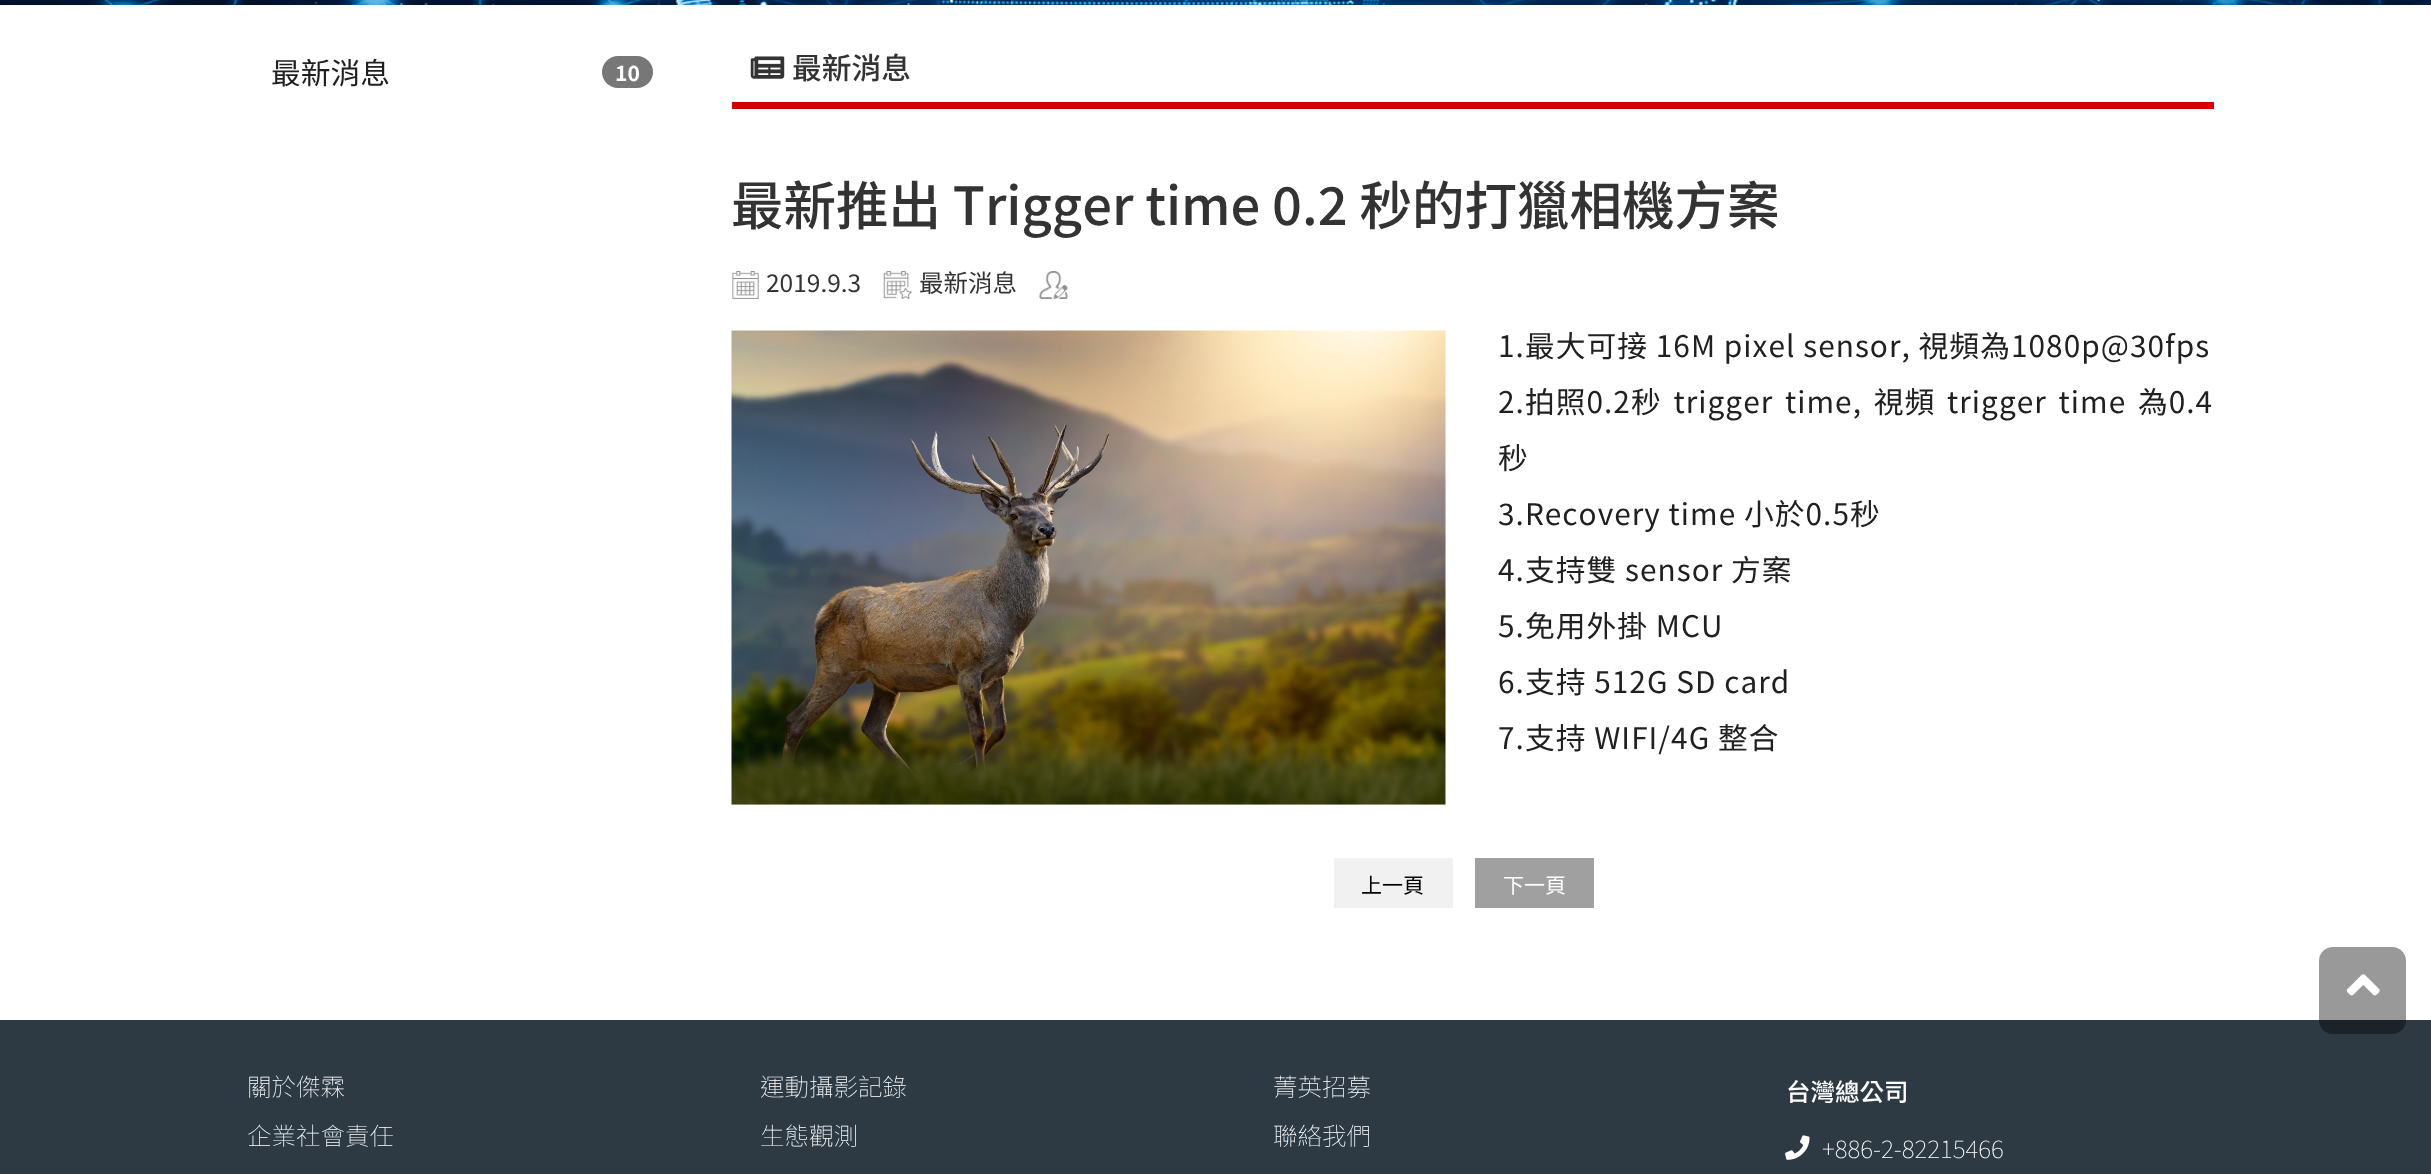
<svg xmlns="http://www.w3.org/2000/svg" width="2431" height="1174">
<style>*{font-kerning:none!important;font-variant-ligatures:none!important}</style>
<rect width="100%" height="100%" fill="#fff"/>
<image x="0" y="0" width="2431" height="5" href="media/1.png"/>
<text x="271" y="84" style="font-family:Noto Sans TC;font-size:29.75px;fill:#202020">最新消息</text>
<rect x="602" y="56" width="51" height="32" rx="16" fill="#777"/>
<text x="615" y="81" style="font-family:Noto Sans TC;font-size:21px;font-weight:bold;fill:#fff">10</text>
<rect x="732" y="102" width="1482" height="7" fill="#d30000"/>
<image x="750" y="56" width="35" height="23" href="media/2.png"/>
<text x="792" y="79" style="font-family:Noto Sans TC;font-size:29.75px;font-weight:500;fill:#333">最新消息</text>
<text x="731" y="225" style="font-family:Noto Sans TC;font-size:52.5px;font-weight:500;fill:#333">最新推出 Trigger time 0.2 秒的打獵相機方案</text>
<image x="732" y="271" width="27" height="28" href="media/3.png"/>
<text x="766" y="292" style="font-family:Noto Sans TC;font-size:24.5px;fill:#333">2019.9.3</text>
<image x="883" y="271" width="29" height="28" href="media/4.png"/>
<text x="919" y="292" style="font-family:Noto Sans TC;font-size:24.5px;fill:#333">最新消息</text>
<image x="1039" y="271" width="29" height="28" href="media/5.png"/>
<image x="731" y="330" width="715" height="475" href="media/6.png"/>
<text x="1498" y="357" style="font-family:Noto Sans TC;font-size:29.75px;letter-spacing:1.05px;fill:#202020">1.最大可接 16M pixel sensor, 視頻為1080p@30fps</text>
<text x="1498" y="413" word-spacing="4" style="font-family:Noto Sans TC;font-size:29.75px;letter-spacing:1.05px;fill:#202020">2.拍照0.2秒 trigger time, 視頻 trigger time 為0.4</text>
<text x="1498" y="469" style="font-family:Noto Sans TC;font-size:29.75px;letter-spacing:1.05px;fill:#202020">秒</text>
<text x="1498" y="525" style="font-family:Noto Sans TC;font-size:29.75px;letter-spacing:1.05px;fill:#202020">3.Recovery time 小於0.5秒</text>
<text x="1498" y="581" style="font-family:Noto Sans TC;font-size:29.75px;letter-spacing:1.05px;fill:#202020">4.支持雙 sensor 方案</text>
<text x="1498" y="637" style="font-family:Noto Sans TC;font-size:29.75px;letter-spacing:1.05px;fill:#202020">5.免用外掛 MCU</text>
<text x="1498" y="693" style="font-family:Noto Sans TC;font-size:29.75px;letter-spacing:1.05px;fill:#202020">6.支持 512G SD card</text>
<text x="1498" y="749" style="font-family:Noto Sans TC;font-size:29.75px;letter-spacing:1.05px;fill:#202020">7.支持 WIFI/4G 整合</text>
<rect x="1334" y="858" width="119" height="50" fill="#f1f1f1"/>
<text x="1361" y="893" style="font-family:Noto Sans TC;font-size:21px;fill:#000">上一頁</text>
<rect x="1475" y="858" width="119" height="50" fill="#a0a0a0"/>
<text x="1503" y="893" style="font-family:Noto Sans TC;font-size:21px;fill:#fff">下一頁</text>
<rect y="1020" width="2431" height="154" fill="#2d3a44"/>
<rect x="2319" y="947" width="87" height="87" rx="14" fill="#00000066"/>
<image x="2346" y="974" width="34" height="22" href="media/7.png"/>
<text x="247" y="1096" style="font-family:Noto Sans TC;font-size:24.5px;font-weight:100;fill:#fff">關於傑霖</text>
<text x="247" y="1145" style="font-family:Noto Sans TC;font-size:24.5px;font-weight:100;fill:#fff">企業社會責任</text>
<text x="760" y="1096" style="font-family:Noto Sans TC;font-size:24.5px;font-weight:100;fill:#fff">運動攝影記錄</text>
<text x="760" y="1145" style="font-family:Noto Sans TC;font-size:24.5px;font-weight:100;fill:#fff">生態觀測</text>
<text x="1273" y="1096" style="font-family:Noto Sans TC;font-size:24.5px;font-weight:100;fill:#fff">菁英招募</text>
<text x="1273" y="1145" style="font-family:Noto Sans TC;font-size:24.5px;font-weight:100;fill:#fff">聯絡我們</text>
<text x="1786" y="1101" style="font-family:Noto Sans TC;font-size:24.5px;font-weight:500;fill:#fff">台灣總公司</text>
<image x="1785" y="1135" width="25" height="25" href="media/8.png"/>
<text x="1822" y="1158" style="font-family:Noto Sans TC;font-size:24.5px;font-weight:100;fill:#fff">+886-2-82215466</text>
</svg>
